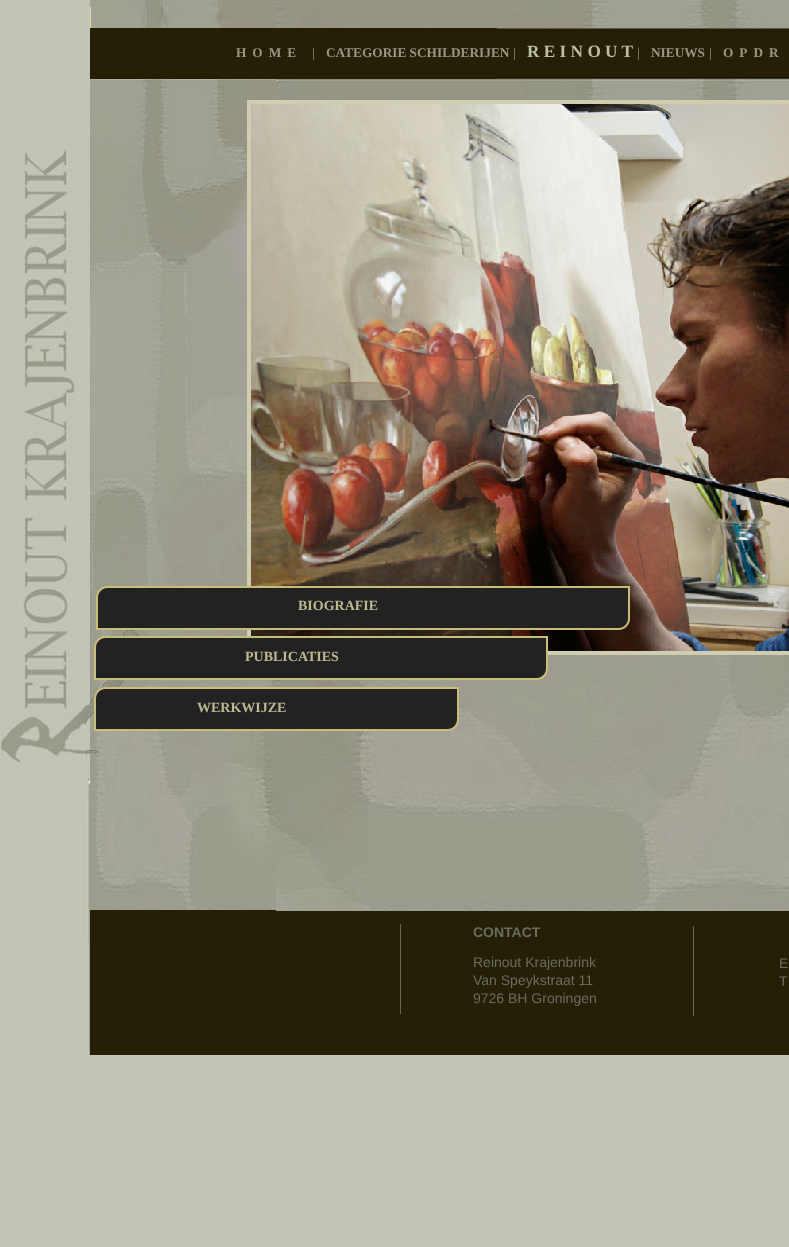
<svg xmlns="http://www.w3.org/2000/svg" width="789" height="1247">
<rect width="100%" height="100%" fill="#c2c4b6"/>
<image x="1" y="0" width="788" height="1055" href="media/1.png"/>
<text x="236" y="57" style="font-family:Liberation Serif;font-size:13.3px;font-weight:bold;letter-spacing:6px;fill:#999685">HOME</text>
<text x="312" y="57" style="font-family:Liberation Serif;font-size:13.3px;letter-spacing:4px;fill:#999685">|</text>
<text x="326" y="57" style="font-family:Liberation Serif;font-size:13.3px;font-weight:bold;fill:#999685">CATEGORIE SCHILDERIJEN</text>
<text x="513" y="57" style="font-family:Liberation Serif;font-size:13.3px;letter-spacing:4px;fill:#999685">|</text>
<text x="527" y="57" style="font-family:Liberation Serif;font-size:17.25px;font-weight:bold;fill:#bebea1">R E I N O U T</text>
<text x="637" y="57" style="font-family:Liberation Serif;font-size:13.3px;letter-spacing:4px;fill:#999685">|</text>
<text x="651" y="57" style="font-family:Liberation Serif;font-size:13.3px;font-weight:bold;fill:#999685">NIEUWS</text>
<text x="709" y="57" style="font-family:Liberation Serif;font-size:13.3px;letter-spacing:4px;fill:#999685">|</text>
<text x="723" y="57" style="font-family:Liberation Serif;font-size:13.3px;font-weight:bold;letter-spacing:6px;fill:#999685">OPDR</text>
<image x="247" y="100" width="542" height="555" href="media/2.png"/>
<image x="96" y="586" width="534" height="44" href="media/3.png"/>
<text x="298" y="610" style="font-family:Liberation Serif;font-size:14px;font-weight:bold;fill:#beb88f">BIOGRAFIE</text>
<image x="94" y="636" width="454" height="44" href="media/4.png"/>
<text x="245" y="661" style="font-family:Liberation Serif;font-size:14px;font-weight:bold;fill:#beb88f">PUBLICATIES</text>
<image x="94" y="687" width="365" height="44" href="media/5.png"/>
<text x="197" y="712" style="font-family:Liberation Serif;font-size:14px;font-weight:bold;fill:#beb88f">WERKWIJZE</text>
<rect x="400" y="924" width="1" height="90" fill="#6d674f"/>
<text x="473" y="937" style="font-family:Liberation Sans;font-size:14px;font-weight:bold;fill:#6b6c61">CONTACT</text>
<text x="473" y="967" style="font-family:Liberation Sans;font-size:14px;fill:#6b6c61">Reinout Krajenbrink</text>
<text x="473" y="985" style="font-family:Liberation Sans;font-size:14px;fill:#6b6c61">Van Speykstraat 11</text>
<text x="473" y="1003" style="font-family:Liberation Sans;font-size:14px;fill:#6b6c61">9726 BH Groningen</text>
<rect x="693" y="926" width="1" height="90" fill="#6d674f"/>
<text x="779" y="968" style="font-family:Liberation Sans;font-size:14px;fill:#6b6c61">E</text>
<text x="779" y="986" style="font-family:Liberation Sans;font-size:14px;fill:#6b6c61">T</text>
</svg>
